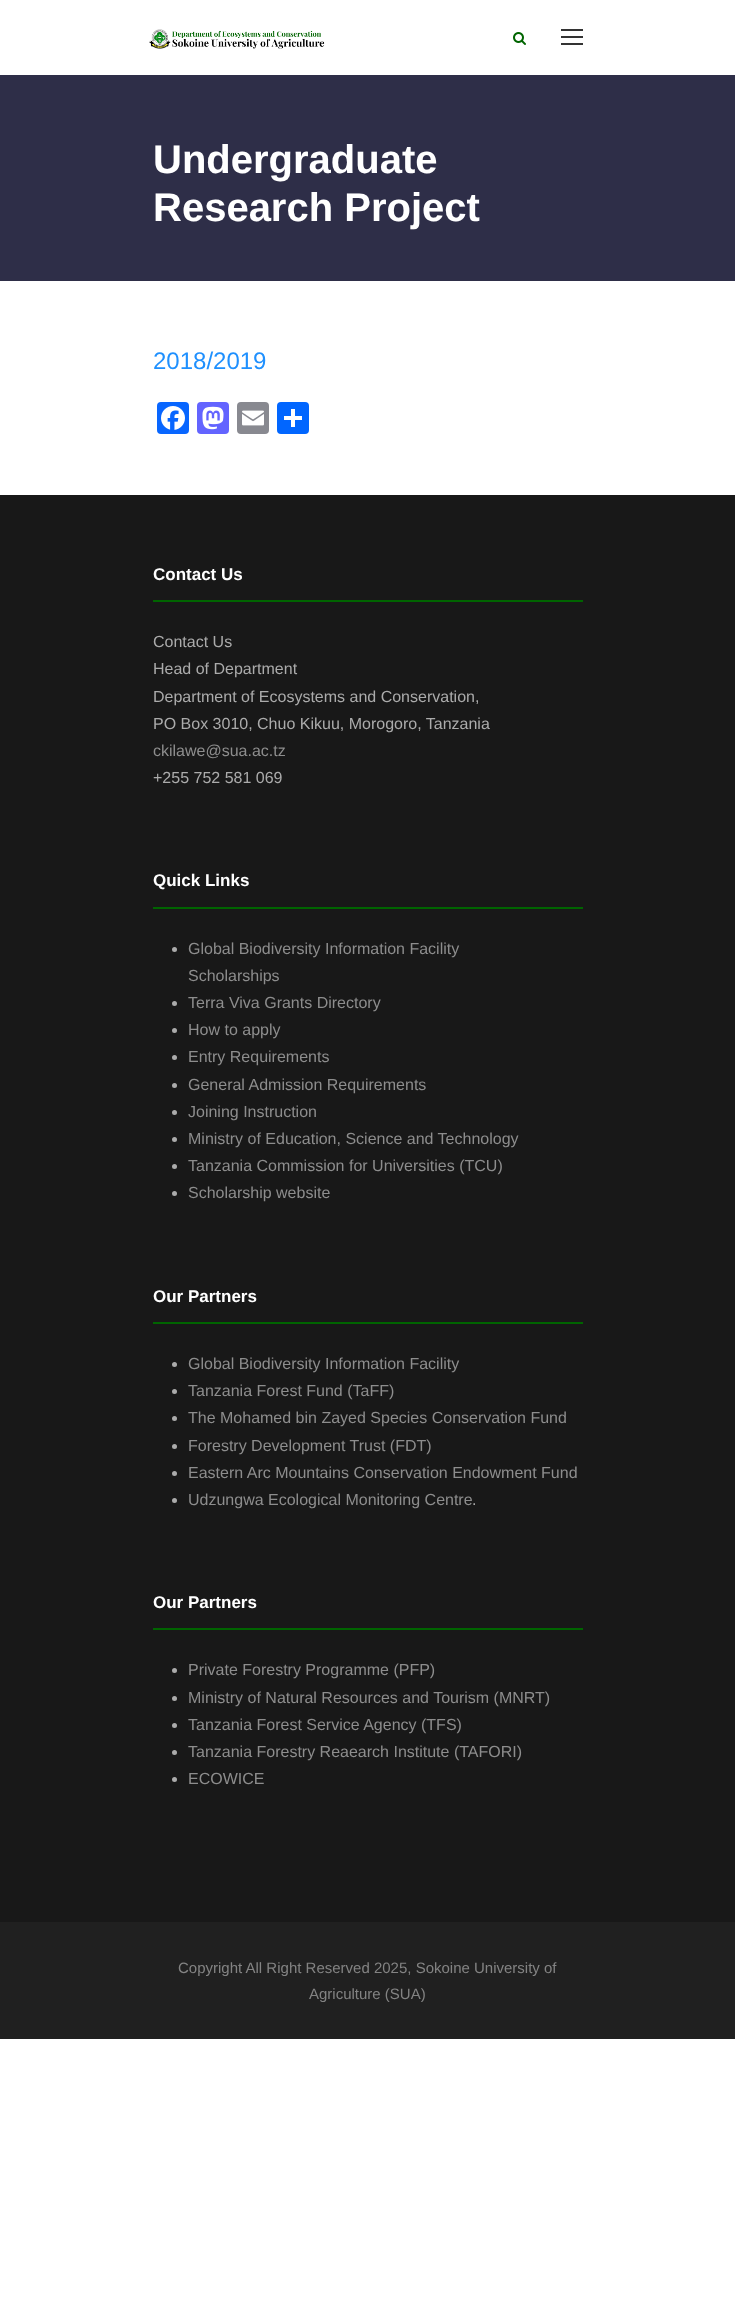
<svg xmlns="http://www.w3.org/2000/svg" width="735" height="2299">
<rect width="100%" height="100%" fill="#fff"/>
<image x="149" y="29" width="176" height="20" href="media/1.png"/>
<image x="513" y="32" width="13" height="13" href="media/2.png"/>
<rect x="561" y="29" width="22" height="2" fill="#333"/>
<rect x="561" y="36" width="22" height="2" fill="#333"/>
<rect x="561" y="43" width="22" height="2" fill="#333"/>
<rect y="75" width="735" height="206" fill="#2e2e48"/>
<text x="153" y="173" style="font-family:Liberation Sans;font-size:40px;font-weight:bold;fill:#fff">Undergraduate</text>
<text x="153" y="221" style="font-family:Liberation Sans;font-size:40px;font-weight:bold;fill:#fff">Research Project</text>
<text x="153" y="369" style="font-family:Liberation Sans;font-size:24px;fill:#1f90fe">2018/2019</text>
<rect x="157" y="402" width="32" height="32" rx="4" fill="#0866ff"/>
<image x="161" y="406" width="24" height="24" href="media/3.png"/>
<rect x="197" y="402" width="32" height="32" rx="4" fill="#6364ff"/>
<image x="202" y="406" width="22" height="24" href="media/4.png"/>
<rect x="237" y="402" width="32" height="32" rx="4" fill="#888990"/>
<image x="242" y="410" width="22" height="16" href="media/5.png"/>
<rect x="277" y="402" width="32" height="32" rx="4" fill="#0166ff"/>
<rect x="291" y="409" width="4" height="18" fill="#fff"/>
<rect x="284" y="416" width="18" height="4" fill="#fff"/>
<rect y="495" width="735" height="1427" fill="#181818"/>
<rect x="153" y="600" width="430" height="2" fill="#006400"/>
<text x="153" y="580" style="font-family:Liberation Sans;font-size:17px;font-weight:bold;fill:#fff">Contact Us</text>
<text x="153" y="647" style="font-family:Liberation Sans;font-size:16px;fill:#ababab">Contact Us</text>
<text x="153" y="674" style="font-family:Liberation Sans;font-size:16px;fill:#ababab">Head of Department</text>
<text x="153" y="702" style="font-family:Liberation Sans;font-size:16px;fill:#ababab">Department of Ecosystems and Conservation,</text>
<text x="153" y="729" style="font-family:Liberation Sans;font-size:16px;fill:#ababab">PO Box 3010, Chuo Kikuu, Morogoro, Tanzania</text>
<text x="153" y="756" style="font-family:Liberation Sans;font-size:16px;fill:#8d8d8d">ckilawe@sua.ac.tz</text>
<text x="153" y="783" style="font-family:Liberation Sans;font-size:16px;fill:#ababab">+255 752 581 069</text>
<rect x="153" y="907" width="430" height="2" fill="#006400"/>
<text x="153" y="886" style="font-family:Liberation Sans;font-size:17px;font-weight:bold;fill:#fff">Quick Links</text>
<circle cx="174.5" cy="949.5" r="2.5" fill="#ababab"/>
<text x="188" y="954" style="font-family:Liberation Sans;font-size:16px;fill:#8d8d8d">Global Biodiversity Information Facility</text>
<text x="188" y="981" style="font-family:Liberation Sans;font-size:16px;fill:#8d8d8d">Scholarships</text>
<circle cx="174.5" cy="1003.5" r="2.5" fill="#ababab"/>
<text x="188" y="1008" style="font-family:Liberation Sans;font-size:16px;fill:#8d8d8d">Terra Viva Grants Directory</text>
<circle cx="174.5" cy="1030.5" r="2.5" fill="#ababab"/>
<text x="188" y="1035" style="font-family:Liberation Sans;font-size:16px;fill:#8d8d8d">How to apply</text>
<circle cx="174.5" cy="1057.5" r="2.5" fill="#ababab"/>
<text x="188" y="1062" style="font-family:Liberation Sans;font-size:16px;fill:#8d8d8d">Entry Requirements</text>
<circle cx="174.5" cy="1085.5" r="2.5" fill="#ababab"/>
<text x="188" y="1090" style="font-family:Liberation Sans;font-size:16px;fill:#8d8d8d">General Admission Requirements</text>
<circle cx="174.5" cy="1112.5" r="2.5" fill="#ababab"/>
<text x="188" y="1117" style="font-family:Liberation Sans;font-size:16px;fill:#8d8d8d">Joining Instruction</text>
<circle cx="174.5" cy="1139.5" r="2.5" fill="#ababab"/>
<text x="188" y="1144" style="font-family:Liberation Sans;font-size:16px;fill:#8d8d8d">Ministry of Education, Science and Technology</text>
<circle cx="174.5" cy="1166.5" r="2.5" fill="#ababab"/>
<text x="188" y="1171" style="font-family:Liberation Sans;font-size:16px;fill:#8d8d8d">Tanzania Commission for Universities (TCU)</text>
<circle cx="174.5" cy="1193.5" r="2.5" fill="#ababab"/>
<text x="188" y="1198" style="font-family:Liberation Sans;font-size:16px;fill:#8d8d8d">Scholarship website</text>
<rect x="153" y="1322" width="430" height="2" fill="#006400"/>
<text x="153" y="1302" style="font-family:Liberation Sans;font-size:17px;font-weight:bold;fill:#fff">Our Partners</text>
<circle cx="174.5" cy="1364.5" r="2.5" fill="#ababab"/>
<text x="188" y="1369" style="font-family:Liberation Sans;font-size:16px;fill:#8d8d8d">Global Biodiversity Information Facility</text>
<circle cx="174.5" cy="1391.5" r="2.5" fill="#ababab"/>
<text x="188" y="1396" style="font-family:Liberation Sans;font-size:16px;fill:#8d8d8d">Tanzania Forest Fund (TaFF)</text>
<circle cx="174.5" cy="1418.5" r="2.5" fill="#ababab"/>
<text x="188" y="1423" style="font-family:Liberation Sans;font-size:16px;fill:#8d8d8d">The Mohamed bin Zayed Species Conservation Fund</text>
<circle cx="174.5" cy="1446.5" r="2.5" fill="#ababab"/>
<text x="188" y="1451" style="font-family:Liberation Sans;font-size:16px;fill:#8d8d8d">Forestry Development Trust (FDT)</text>
<circle cx="174.5" cy="1473.5" r="2.5" fill="#ababab"/>
<text x="188" y="1478" style="font-family:Liberation Sans;font-size:16px;fill:#8d8d8d">Eastern Arc Mountains Conservation Endowment Fund</text>
<circle cx="174.5" cy="1500.5" r="2.5" fill="#ababab"/>
<text x="188" y="1505" style="font-family:Liberation Sans;font-size:16px;fill:#8d8d8d">Udzungwa Ecological Monitoring Centre</text>
<text x="472" y="1505" style="font-family:Liberation Sans;font-size:16px;fill:#ababab">.</text>
<rect x="153" y="1628" width="430" height="2" fill="#006400"/>
<text x="153" y="1608" style="font-family:Liberation Sans;font-size:17px;font-weight:bold;fill:#fff">Our Partners</text>
<circle cx="174.5" cy="1670.5" r="2.5" fill="#ababab"/>
<text x="188" y="1675" style="font-family:Liberation Sans;font-size:16px;fill:#8d8d8d">Private Forestry Programme (PFP)</text>
<circle cx="174.5" cy="1698.5" r="2.5" fill="#ababab"/>
<text x="188" y="1703" style="font-family:Liberation Sans;font-size:16px;fill:#8d8d8d">Ministry of Natural Resources and Tourism (MNRT)</text>
<circle cx="174.5" cy="1725.5" r="2.5" fill="#ababab"/>
<text x="188" y="1730" style="font-family:Liberation Sans;font-size:16px;fill:#8d8d8d">Tanzania Forest Service Agency (TFS)</text>
<circle cx="174.5" cy="1752.5" r="2.5" fill="#ababab"/>
<text x="188" y="1757" style="font-family:Liberation Sans;font-size:16px;fill:#8d8d8d">Tanzania Forestry Reaearch Institute (TAFORI)</text>
<circle cx="174.5" cy="1779.5" r="2.5" fill="#ababab"/>
<text x="188" y="1784" style="font-family:Liberation Sans;font-size:16px;fill:#8d8d8d">ECOWICE</text>
<rect y="1922" width="735" height="117" fill="#202020"/>
<text x="178" y="1973" style="font-family:Liberation Sans;font-size:15px;fill:#838383">Copyright All Right Reserved 2025, Sokoine University of</text>
<text x="309" y="1999" style="font-family:Liberation Sans;font-size:15px;fill:#838383">Agriculture (SUA)</text>
</svg>
